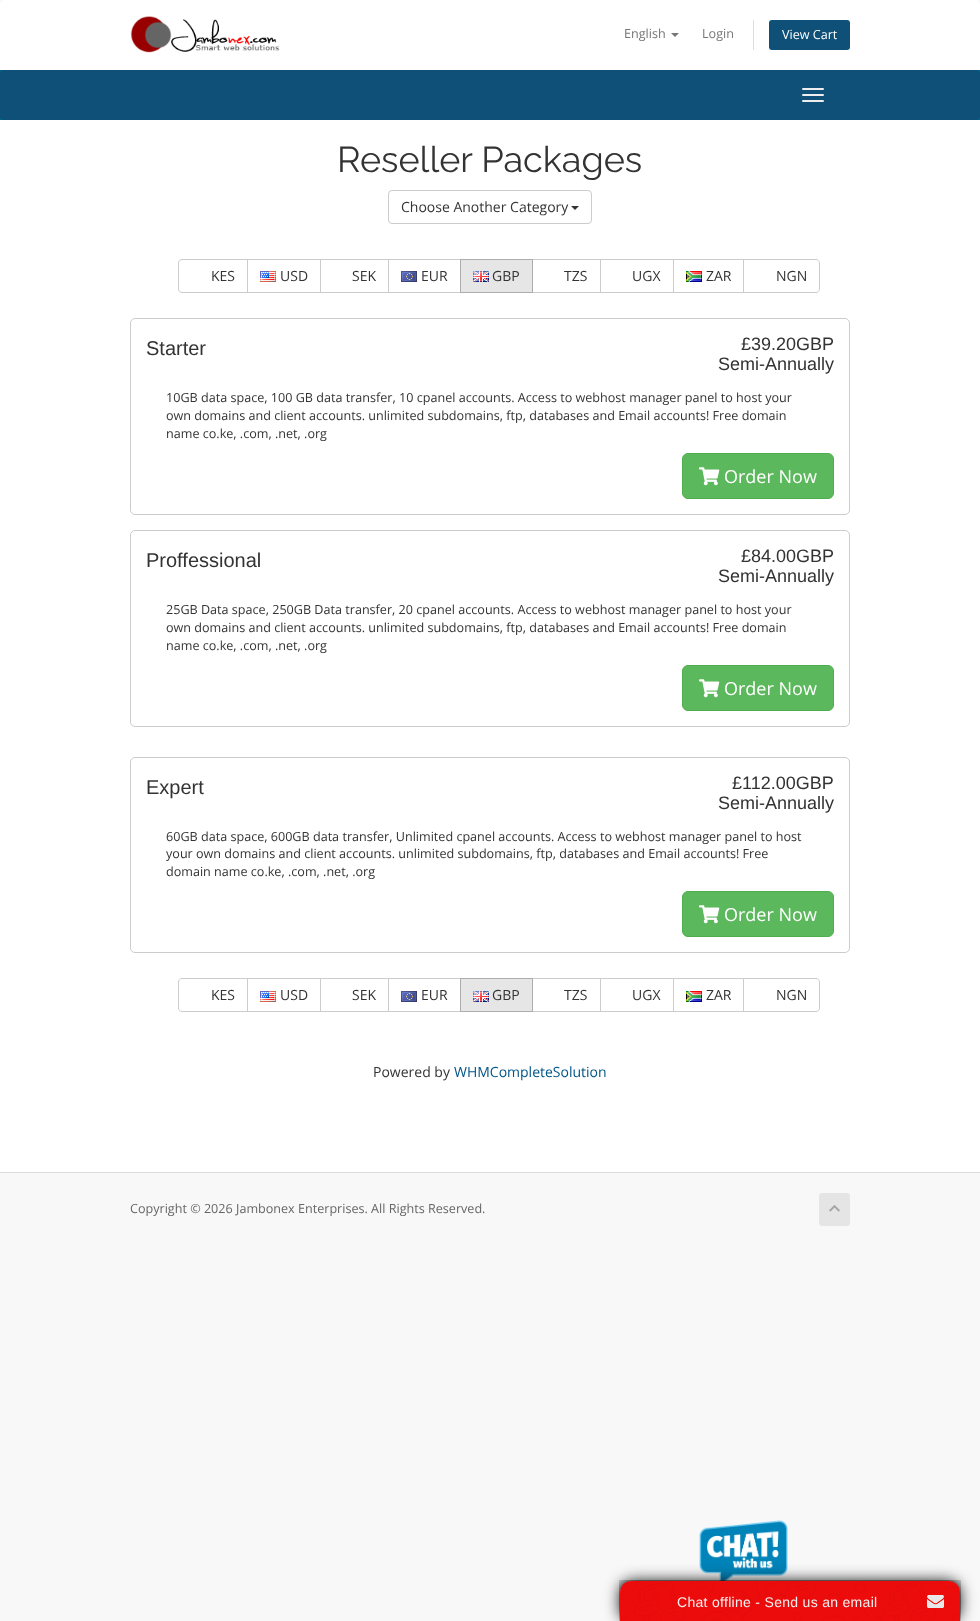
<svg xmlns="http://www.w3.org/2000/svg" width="980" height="1621">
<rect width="100%" height="100%" fill="#f8f8f8"/>
<path d="M5 0h970c3 0 5 2 5 5v65h-980v-65c0-3 2-5 5-5z" fill="#fff"/>
<image x="130" y="16" width="150" height="37" href="media/1.png"/>
<text x="624" y="38" style="font-family:Open Sans;font-size:12.6px;fill:#777">English</text>
<path d="M671 33h8l-4 4z" fill="#777"/>
<text x="702" y="38" style="font-family:Open Sans;font-size:12.6px;fill:#777">Login</text>
<rect x="753" y="20" width="1" height="30" fill="#ddd"/>
<rect x="769" y="20" width="81" height="30" rx="3" fill="#0e5077"/>
<text x="782" y="39" style="font-family:Open Sans;font-size:12.6px;fill:#fff">View Cart</text>
<rect y="70" width="980" height="50" fill="#006687"/>
<rect y="70" width="980" height="50" rx="4" fill="#0e5077"/>
<rect x="802" y="88" width="22" height="2" rx="1" fill="#eee"/>
<rect x="802" y="94" width="22" height="2" rx="1" fill="#eee"/>
<rect x="802" y="100" width="22" height="2" rx="1" fill="#eee"/>
<rect y="120" width="980" height="1052" fill="#fff"/>
<text x="337" y="172" style="font-family:Raleway;font-size:36px;fill:#333">Reseller Packages</text>
<rect x="388.5" y="190.5" width="203" height="33" rx="3.5" fill="none" stroke="#ccc"/>
<text x="401" y="212" style="font-family:Open Sans;font-size:14px;fill:#333">Choose Another Category</text>
<path d="M571 206h8l-4 4z" fill="#333"/>
<path d="M182 259.5h65.5v33h-65.5c-2 0-3.5-1.5-3.5-3.5v-26c0-2 1.5-3.5 3.5-3.5z" fill="none" stroke="#ccc"/>
<text x="211" y="281" style="font-family:Open Sans;font-size:14px;fill:#333">KES</text>
<rect x="247.5" y="259.5" width="73" height="33" fill="none" stroke="#ccc"/>
<image x="260" y="271" width="16" height="11" href="media/2.png"/>
<text x="280" y="281" style="font-family:Open Sans;font-size:14px;fill:#333">USD</text>
<rect x="320.5" y="259.5" width="68" height="33" fill="none" stroke="#ccc"/>
<text x="352" y="281" style="font-family:Open Sans;font-size:14px;fill:#333">SEK</text>
<rect x="388.5" y="259.5" width="72" height="33" fill="none" stroke="#ccc"/>
<image x="401" y="271" width="16" height="11" href="media/3.png"/>
<text x="421" y="281" style="font-family:Open Sans;font-size:14px;fill:#333">EUR</text>
<rect x="532.5" y="259.5" width="68" height="33" fill="none" stroke="#ccc"/>
<rect x="460.5" y="259.5" width="72" height="33" fill="#e6e6e6" stroke="#adadad"/>
<image x="473" y="271" width="16" height="11" href="media/4.png"/>
<text x="492" y="281" style="font-family:Open Sans;font-size:14px;fill:#333">GBP</text>
<text x="564" y="281" style="font-family:Open Sans;font-size:14px;fill:#333">TZS</text>
<rect x="600.5" y="259.5" width="73" height="33" fill="none" stroke="#ccc"/>
<text x="632" y="281" style="font-family:Open Sans;font-size:14px;fill:#333">UGX</text>
<rect x="673.5" y="259.5" width="70" height="33" fill="none" stroke="#ccc"/>
<image x="686" y="271" width="16" height="11" href="media/5.png"/>
<text x="706" y="281" style="font-family:Open Sans;font-size:14px;fill:#333">ZAR</text>
<path d="M743.5 259.5h72.5c2 0 3.5 1.5 3.5 3.5v26c0 2-1.5 3.5-3.5 3.5h-72.5z" fill="#fff" stroke="#ccc"/>
<text x="776" y="281" style="font-family:Open Sans;font-size:14px;fill:#333">NGN</text>
<rect x="130.5" y="318.5" width="719" height="196" rx="4.5" fill="none" stroke="#ccc"/>
<text x="146" y="355" style="font-family:Liberation Sans;font-size:20px;fill:#333">Starter</text>
<text x="741" y="350" style="font-family:Liberation Sans;font-size:18px;fill:#333">£39.20GBP</text>
<text x="718" y="370" style="font-family:Liberation Sans;font-size:18px;fill:#333">Semi-Annually</text>
<text x="166" y="402" style="font-family:Open Sans;font-size:12.6px;fill:#333">10GB data space, 100 GB data transfer, 10 cpanel accounts. Access to webhost manager panel to host your</text>
<text x="166" y="420" style="font-family:Open Sans;font-size:12.6px;fill:#333">own domains and client accounts. unlimited subdomains, ftp, databases and Email accounts! Free domain</text>
<text x="166" y="438" style="font-family:Open Sans;font-size:12.6px;fill:#333">name co.ke, .com, .net, .org</text>
<rect x="682.5" y="453.5" width="151" height="45" rx="5.5" fill="#5cb85c" stroke="#4cae4c"/>
<image x="699" y="467" width="21" height="19" href="media/6.png"/>
<text x="724" y="483" style="font-family:Open Sans;font-size:18px;fill:#fff">Order Now</text>
<rect x="130.5" y="530.5" width="719" height="196" rx="4.5" fill="none" stroke="#ccc"/>
<text x="146" y="567" style="font-family:Liberation Sans;font-size:20px;fill:#333">Proffessional</text>
<text x="741" y="562" style="font-family:Liberation Sans;font-size:18px;fill:#333">£84.00GBP</text>
<text x="718" y="582" style="font-family:Liberation Sans;font-size:18px;fill:#333">Semi-Annually</text>
<text x="166" y="614" style="font-family:Open Sans;font-size:12.6px;fill:#333">25GB Data space, 250GB Data transfer, 20 cpanel accounts. Access to webhost manager panel to host your</text>
<text x="166" y="632" style="font-family:Open Sans;font-size:12.6px;fill:#333">own domains and client accounts. unlimited subdomains, ftp, databases and Email accounts! Free domain</text>
<text x="166" y="650" style="font-family:Open Sans;font-size:12.6px;fill:#333">name co.ke, .com, .net, .org</text>
<rect x="682.5" y="665.5" width="151" height="45" rx="5.5" fill="#5cb85c" stroke="#4cae4c"/>
<image x="699" y="679" width="21" height="19" href="media/6.png"/>
<text x="724" y="695" style="font-family:Open Sans;font-size:18px;fill:#fff">Order Now</text>
<rect x="130.5" y="757.5" width="719" height="195" rx="4.5" fill="none" stroke="#ccc"/>
<text x="146" y="794" style="font-family:Liberation Sans;font-size:20px;fill:#333">Expert</text>
<text x="732" y="789" style="font-family:Liberation Sans;font-size:18px;fill:#333">£112.00GBP</text>
<text x="718" y="809" style="font-family:Liberation Sans;font-size:18px;fill:#333">Semi-Annually</text>
<text x="166" y="841" style="font-family:Open Sans;font-size:12.6px;fill:#333">60GB data space, 600GB data transfer, Unlimited cpanel accounts. Access to webhost manager panel to host</text>
<text x="166" y="858" style="font-family:Open Sans;font-size:12.6px;fill:#333">your own domains and client accounts. unlimited subdomains, ftp, databases and Email accounts! Free</text>
<text x="166" y="876" style="font-family:Open Sans;font-size:12.6px;fill:#333">domain name co.ke, .com, .net, .org</text>
<rect x="682.5" y="891.5" width="151" height="45" rx="5.5" fill="#5cb85c" stroke="#4cae4c"/>
<image x="699" y="905" width="21" height="19" href="media/6.png"/>
<text x="724" y="921" style="font-family:Open Sans;font-size:18px;fill:#fff">Order Now</text>
<path d="M182 978.5h65.5v33h-65.5c-2 0-3.5-1.5-3.5-3.5v-26c0-2 1.5-3.5 3.5-3.5z" fill="none" stroke="#ccc"/>
<text x="211" y="1000" style="font-family:Open Sans;font-size:14px;fill:#333">KES</text>
<rect x="247.5" y="978.5" width="73" height="33" fill="none" stroke="#ccc"/>
<image x="260" y="991" width="16" height="11" href="media/2.png"/>
<text x="280" y="1000" style="font-family:Open Sans;font-size:14px;fill:#333">USD</text>
<rect x="320.5" y="978.5" width="68" height="33" fill="none" stroke="#ccc"/>
<text x="352" y="1000" style="font-family:Open Sans;font-size:14px;fill:#333">SEK</text>
<rect x="388.5" y="978.5" width="72" height="33" fill="none" stroke="#ccc"/>
<image x="401" y="991" width="16" height="11" href="media/3.png"/>
<text x="421" y="1000" style="font-family:Open Sans;font-size:14px;fill:#333">EUR</text>
<rect x="532.5" y="978.5" width="68" height="33" fill="none" stroke="#ccc"/>
<rect x="460.5" y="978.5" width="72" height="33" fill="#e6e6e6" stroke="#adadad"/>
<image x="473" y="991" width="16" height="11" href="media/4.png"/>
<text x="492" y="1000" style="font-family:Open Sans;font-size:14px;fill:#333">GBP</text>
<text x="564" y="1000" style="font-family:Open Sans;font-size:14px;fill:#333">TZS</text>
<rect x="600.5" y="978.5" width="73" height="33" fill="none" stroke="#ccc"/>
<text x="632" y="1000" style="font-family:Open Sans;font-size:14px;fill:#333">UGX</text>
<rect x="673.5" y="978.5" width="70" height="33" fill="none" stroke="#ccc"/>
<image x="686" y="991" width="16" height="11" href="media/5.png"/>
<text x="706" y="1000" style="font-family:Open Sans;font-size:14px;fill:#333">ZAR</text>
<path d="M743.5 978.5h72.5c2 0 3.5 1.5 3.5 3.5v26c0 2-1.5 3.5-3.5 3.5h-72.5z" fill="#fff" stroke="#ccc"/>
<text x="776" y="1000" style="font-family:Open Sans;font-size:14px;fill:#333">NGN</text>
<text x="373" y="1077" style="font-family:Open Sans;font-size:14px;fill:#333">Powered by</text>
<text x="454" y="1077" style="font-family:Open Sans;font-size:14px;fill:#058">WHMCompleteSolution</text>
<rect y="1172" width="980" height="1" fill="#ddd"/>
<text x="130" y="1213" style="font-family:Open Sans;font-size:12.6px;fill:#666">Copyright © 2026 Jambonex Enterprises. All Rights Reserved.</text>
<rect x="819" y="1193" width="31" height="33" rx="3" fill="#e5e5e5"/>
<image x="829" y="1205" width="11" height="7" href="media/7.png"/>
<image x="699" y="1520" width="89" height="61" href="media/8.png"/>
<rect x="620" y="1581" width="340" height="40" rx="13" fill="#111" filter="blur(7.5px)"/>
<image x="619" y="1580" width="342" height="41" href="media/9.png"/>
<path d="M631 1581h318c6 0 11 5 11 11v29h-340v-29c0-6 5-11 11-11z" fill="#ed0c0c"/>
<image x="623" y="1581" width="337" height="40" href="media/10.png"/>
<text x="677" y="1607" style="font-family:Liberation Sans;font-size:14px;letter-spacing:0.3px;fill:#f1f1f1">Chat offline - Send us an email</text>
<image x="927" y="1595" width="17" height="13" href="media/11.png"/>
</svg>
